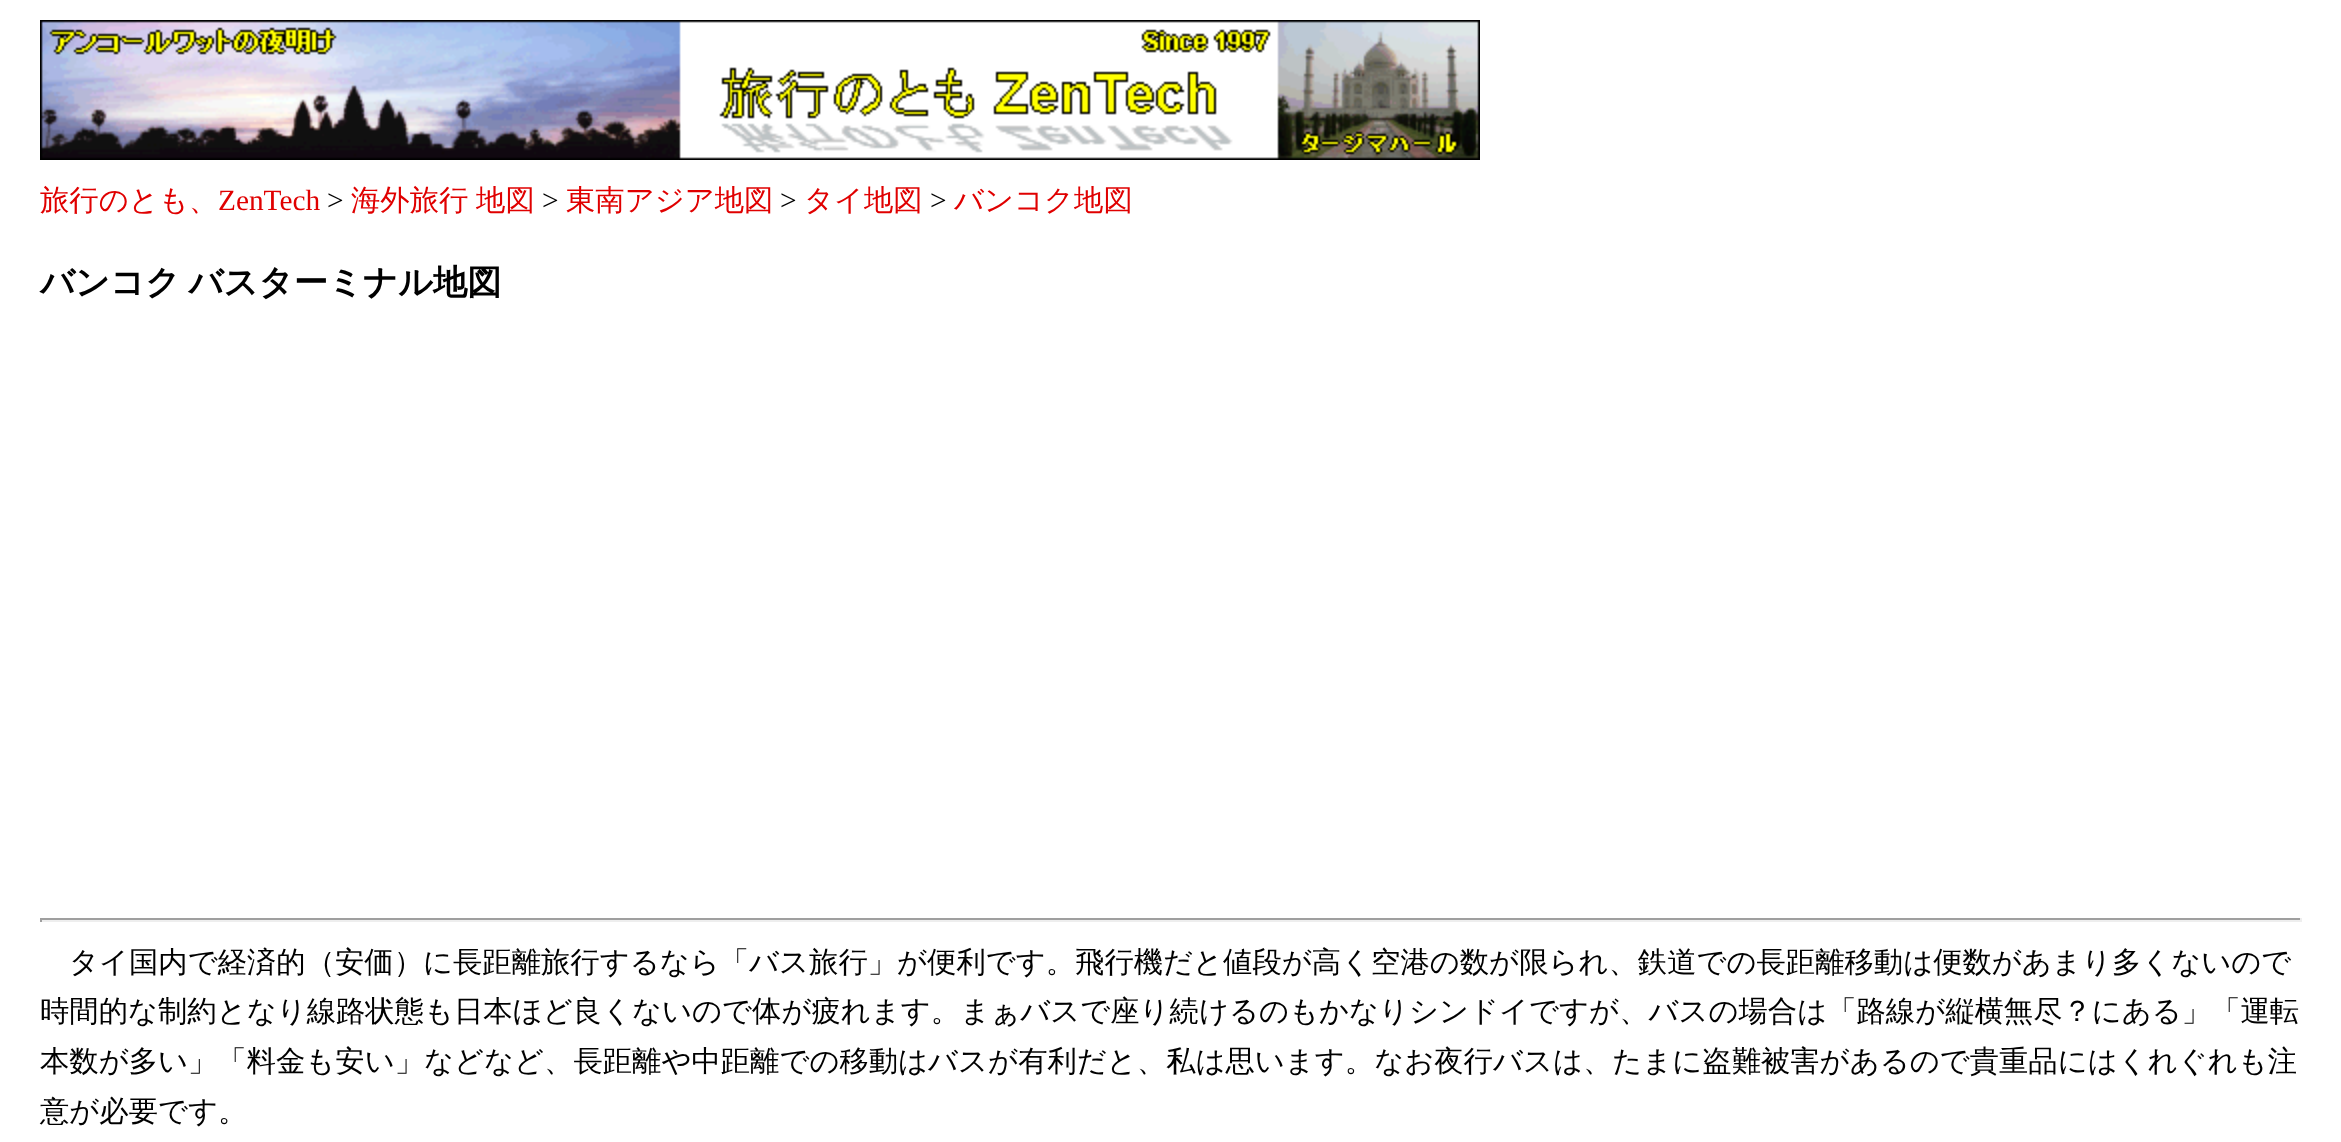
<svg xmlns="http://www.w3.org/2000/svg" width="2341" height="1142">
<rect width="100%" height="100%" fill="#fff"/>
<image x="40" y="20" width="1440" height="140" href="media/1.png"/>
<text x="40" y="210" style="font-family:WenQuanYi Zen Hei;font-size:29.33px;font-weight:500;fill:#e00000">旅行のとも、</text>
<text x="218" y="210" style="font-family:Liberation Serif;font-size:29.33px;fill:#e00000">ZenTech</text>
<text x="327" y="210" style="font-family:Liberation Serif;font-size:29.33px;fill:#000">&gt;</text>
<text x="351" y="210" word-spacing="-1" style="font-family:WenQuanYi Zen Hei;font-size:29.33px;font-weight:500;fill:#e00000">海外旅行 地図</text>
<text x="542" y="210" style="font-family:Liberation Serif;font-size:29.33px;fill:#000">&gt;</text>
<text x="566" y="210" style="font-family:WenQuanYi Zen Hei;font-size:29.33px;font-weight:500;fill:#e00000">東南アジア地図</text>
<text x="780" y="210" style="font-family:Liberation Serif;font-size:29.33px;fill:#000">&gt;</text>
<text x="804" y="210" style="font-family:WenQuanYi Zen Hei;font-size:29.33px;font-weight:500;fill:#e00000">タイ地図</text>
<text x="930" y="210" style="font-family:Liberation Serif;font-size:29.33px;fill:#000">&gt;</text>
<text x="954" y="210" style="font-family:WenQuanYi Zen Hei;font-size:29.33px;font-weight:500;fill:#e00000">バンコク地図</text>
<text x="40" y="294" word-spacing="-2" style="font-family:WenQuanYi Zen Hei;font-size:34.25px;font-weight:bold;fill:#000">バンコク バスターミナル地図</text>
<rect x="40" y="918" width="2262" height="2" fill="#9f9f9f"/>
<rect x="2300" y="918" width="2" height="4" fill="#eee"/>
<rect x="40" y="920" width="2262" height="2" fill="#eee"/>
<rect x="40" y="918" width="2" height="4" fill="#9f9f9f"/>
<text x="69" y="972" style="font-family:WenQuanYi Zen Hei;font-size:29.33px;font-weight:500;fill:#000">タイ国内で経済的（安価）に長距離旅行するなら「バス旅行」が便利です。飛行機だと値段が高く空港の数が限られ、鉄道での長距離移動は便数があまり多くないので</text>
<text x="40" y="1021" style="font-family:WenQuanYi Zen Hei;font-size:29.33px;font-weight:500;fill:#000">時間的な制約となり線路状態も日本ほど良くないので体が疲れます。まぁバスで座り続けるのもかなりシンドイですが、バスの場合は「路線が縦横無尽？にある」「運転</text>
<text x="40" y="1071" style="font-family:WenQuanYi Zen Hei;font-size:29.33px;font-weight:500;fill:#000">本数が多い」「料金も安い」などなど、長距離や中距離での移動はバスが有利だと、私は思います。なお夜行バスは、たまに盗難被害があるので貴重品にはくれぐれも注</text>
<text x="40" y="1121" style="font-family:WenQuanYi Zen Hei;font-size:29.33px;font-weight:500;fill:#000">意が必要です。</text>
</svg>
